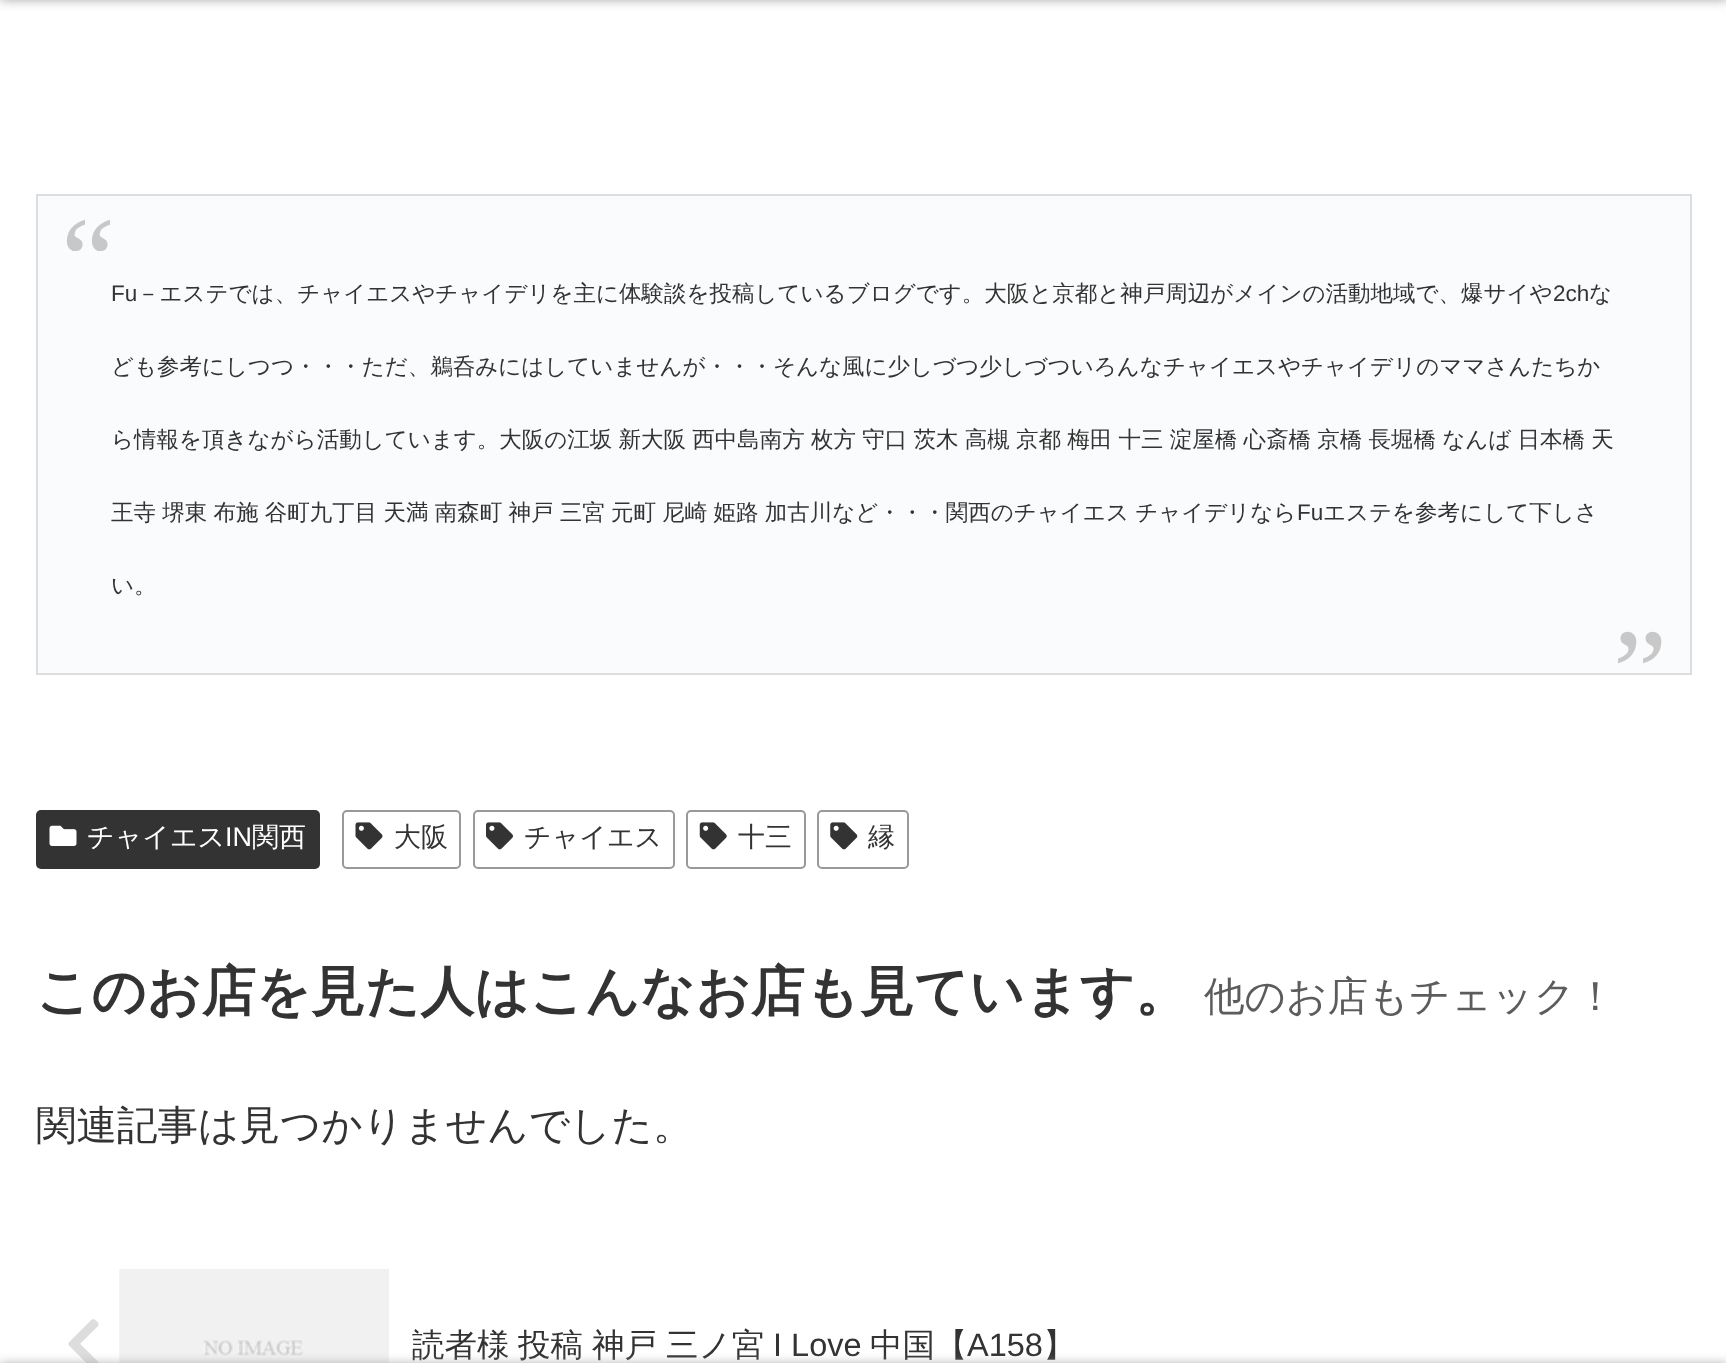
<svg xmlns="http://www.w3.org/2000/svg" width="1726" height="1363">
<rect width="100%" height="100%" fill="#fff"/>
<rect y="-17" width="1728" height="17" fill="#a9a9a9" filter="blur(5.5px)"/>
<rect x="37" y="195" width="1654" height="479" fill="#fafbfc" stroke="#ddd" stroke-width="2"/>
<text x="61" y="301" style="font-family:Liberation Serif;font-size:122px;fill:#c8c8c8">“</text>
<text x="111" y="301" style="font-family:Liberation Sans;font-size:22.5px;fill:#333">Fu</text>
<text x="137" y="301" style="font-family:WenQuanYi Zen Hei;font-size:22.5px;font-weight:500;fill:#333">－エステでは、チャイエスやチャイデリを主に体験談を投稿しているブログです。大阪と京都と神戸周辺がメインの活動地域で、爆サイや</text>
<text x="1553" y="301" style="font-family:Liberation Sans;font-size:22.5px;fill:#333">2ch</text>
<text x="1589" y="301" style="font-family:WenQuanYi Zen Hei;font-size:22.5px;font-weight:500;fill:#333">な</text>
<text x="111" y="374" style="font-family:WenQuanYi Zen Hei;font-size:22.5px;font-weight:500;fill:#333">ども参考にしつつ・・・ただ、鵜呑みにはしていませんが・・・そんな風に少しづつ少しづついろんなチャイエスやチャイデリのママさんたちか</text>
<text x="111" y="447" word-spacing="-0.5" style="font-family:WenQuanYi Zen Hei;font-size:22.5px;font-weight:500;fill:#333">ら情報を頂きながら活動しています。大阪の江坂 新大阪 西中島南方 枚方 守口 茨木 高槻 京都 梅田 十三 淀屋橋 心斎橋 京橋 長堀橋 なんば 日本橋 天</text>
<text x="111" y="520" word-spacing="-0.5" style="font-family:WenQuanYi Zen Hei;font-size:22.5px;font-weight:500;fill:#333">王寺 堺東 布施 谷町九丁目 天満 南森町 神戸 三宮 元町 尼崎 姫路 加古川など・・・関西のチャイエス チャイデリなら</text>
<text x="1297" y="520" style="font-family:Liberation Sans;font-size:22.5px;fill:#333">Fu</text>
<text x="1323" y="520" style="font-family:WenQuanYi Zen Hei;font-size:22.5px;font-weight:500;fill:#333">エステを参考にして下しさ</text>
<text x="111" y="593" style="font-family:WenQuanYi Zen Hei;font-size:22.5px;font-weight:500;fill:#333">い。</text>
<text x="1613" y="713" style="font-family:Liberation Serif;font-size:122px;fill:#c8c8c8">”</text>
<rect x="36" y="810" width="284" height="59" rx="5" fill="#333"/>
<image x="49" y="825" width="28" height="21" href="media/1.png"/>
<text x="87" y="846" style="font-family:WenQuanYi Zen Hei;font-size:27px;font-weight:500;fill:#fff">チャイエス</text>
<text x="225" y="846" style="font-family:Liberation Sans;font-size:27px;fill:#fff">IN</text>
<text x="252" y="846" style="font-family:WenQuanYi Zen Hei;font-size:27px;font-weight:500;fill:#fff">関西</text>
<rect x="343" y="811" width="117" height="57" rx="4" fill="none" stroke="#999" stroke-width="2"/>
<image x="355" y="822" width="28" height="28" href="media/2.png"/>
<text x="394" y="846" style="font-family:WenQuanYi Zen Hei;font-size:27px;font-weight:500;fill:#333">大阪</text>
<rect x="474" y="811" width="200" height="57" rx="4" fill="none" stroke="#999" stroke-width="2"/>
<image x="486" y="822" width="27" height="28" href="media/3.png"/>
<text x="524" y="846" style="font-family:WenQuanYi Zen Hei;font-size:27px;font-weight:500;fill:#333">チャイエス</text>
<rect x="687" y="811" width="118" height="57" rx="4" fill="none" stroke="#999" stroke-width="2"/>
<image x="699" y="822" width="28" height="28" href="media/4.png"/>
<text x="738" y="846" style="font-family:WenQuanYi Zen Hei;font-size:27px;font-weight:500;fill:#333">十三</text>
<rect x="818" y="811" width="90" height="57" rx="4" fill="none" stroke="#999" stroke-width="2"/>
<image x="830" y="822" width="28" height="28" href="media/5.png"/>
<text x="868" y="846" style="font-family:WenQuanYi Zen Hei;font-size:27px;font-weight:500;fill:#333">縁</text>
<text x="36" y="1010" style="font-family:WenQuanYi Zen Hei;font-size:54px;font-weight:bold;fill:#333">このお店を見た人はこんなお店も見ています。</text>
<text x="1204" y="1010" style="font-family:WenQuanYi Zen Hei;font-size:40.5px;font-weight:500;fill:#5c5c5c">他のお店もチェック！</text>
<text x="36" y="1139" style="font-family:WenQuanYi Zen Hei;font-size:40.5px;font-weight:500;fill:#333">関連記事は見つかりませんでした。</text>
<image x="68" y="1319" width="31" height="44" href="media/6.png"/>
<image x="119" y="1269" width="270" height="94" href="media/7.png"/>
<text x="412" y="1356" style="font-family:WenQuanYi Zen Hei;font-size:32.5px;font-weight:500;fill:#333">読者様</text>
<text x="518" y="1356" style="font-family:WenQuanYi Zen Hei;font-size:32.5px;font-weight:500;fill:#333">投稿</text>
<text x="592" y="1356" style="font-family:WenQuanYi Zen Hei;font-size:32.5px;font-weight:500;fill:#333">神戸</text>
<text x="666" y="1356" style="font-family:WenQuanYi Zen Hei;font-size:32.5px;font-weight:500;fill:#333">三ノ宮</text>
<text x="773" y="1356" style="font-family:Liberation Sans;font-size:32.5px;fill:#333">I Love</text>
<text x="870" y="1356" style="font-family:WenQuanYi Zen Hei;font-size:32.5px;font-weight:500;fill:#333">中国【</text>
<text x="967" y="1356" style="font-family:Liberation Sans;font-size:32.5px;fill:#333">A158</text>
<text x="1043" y="1356" style="font-family:WenQuanYi Zen Hei;font-size:32.5px;font-weight:500;fill:#333">】</text>
<rect y="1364" width="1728" height="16" fill="#a9a9a9" filter="blur(5.5px)"/>
</svg>
